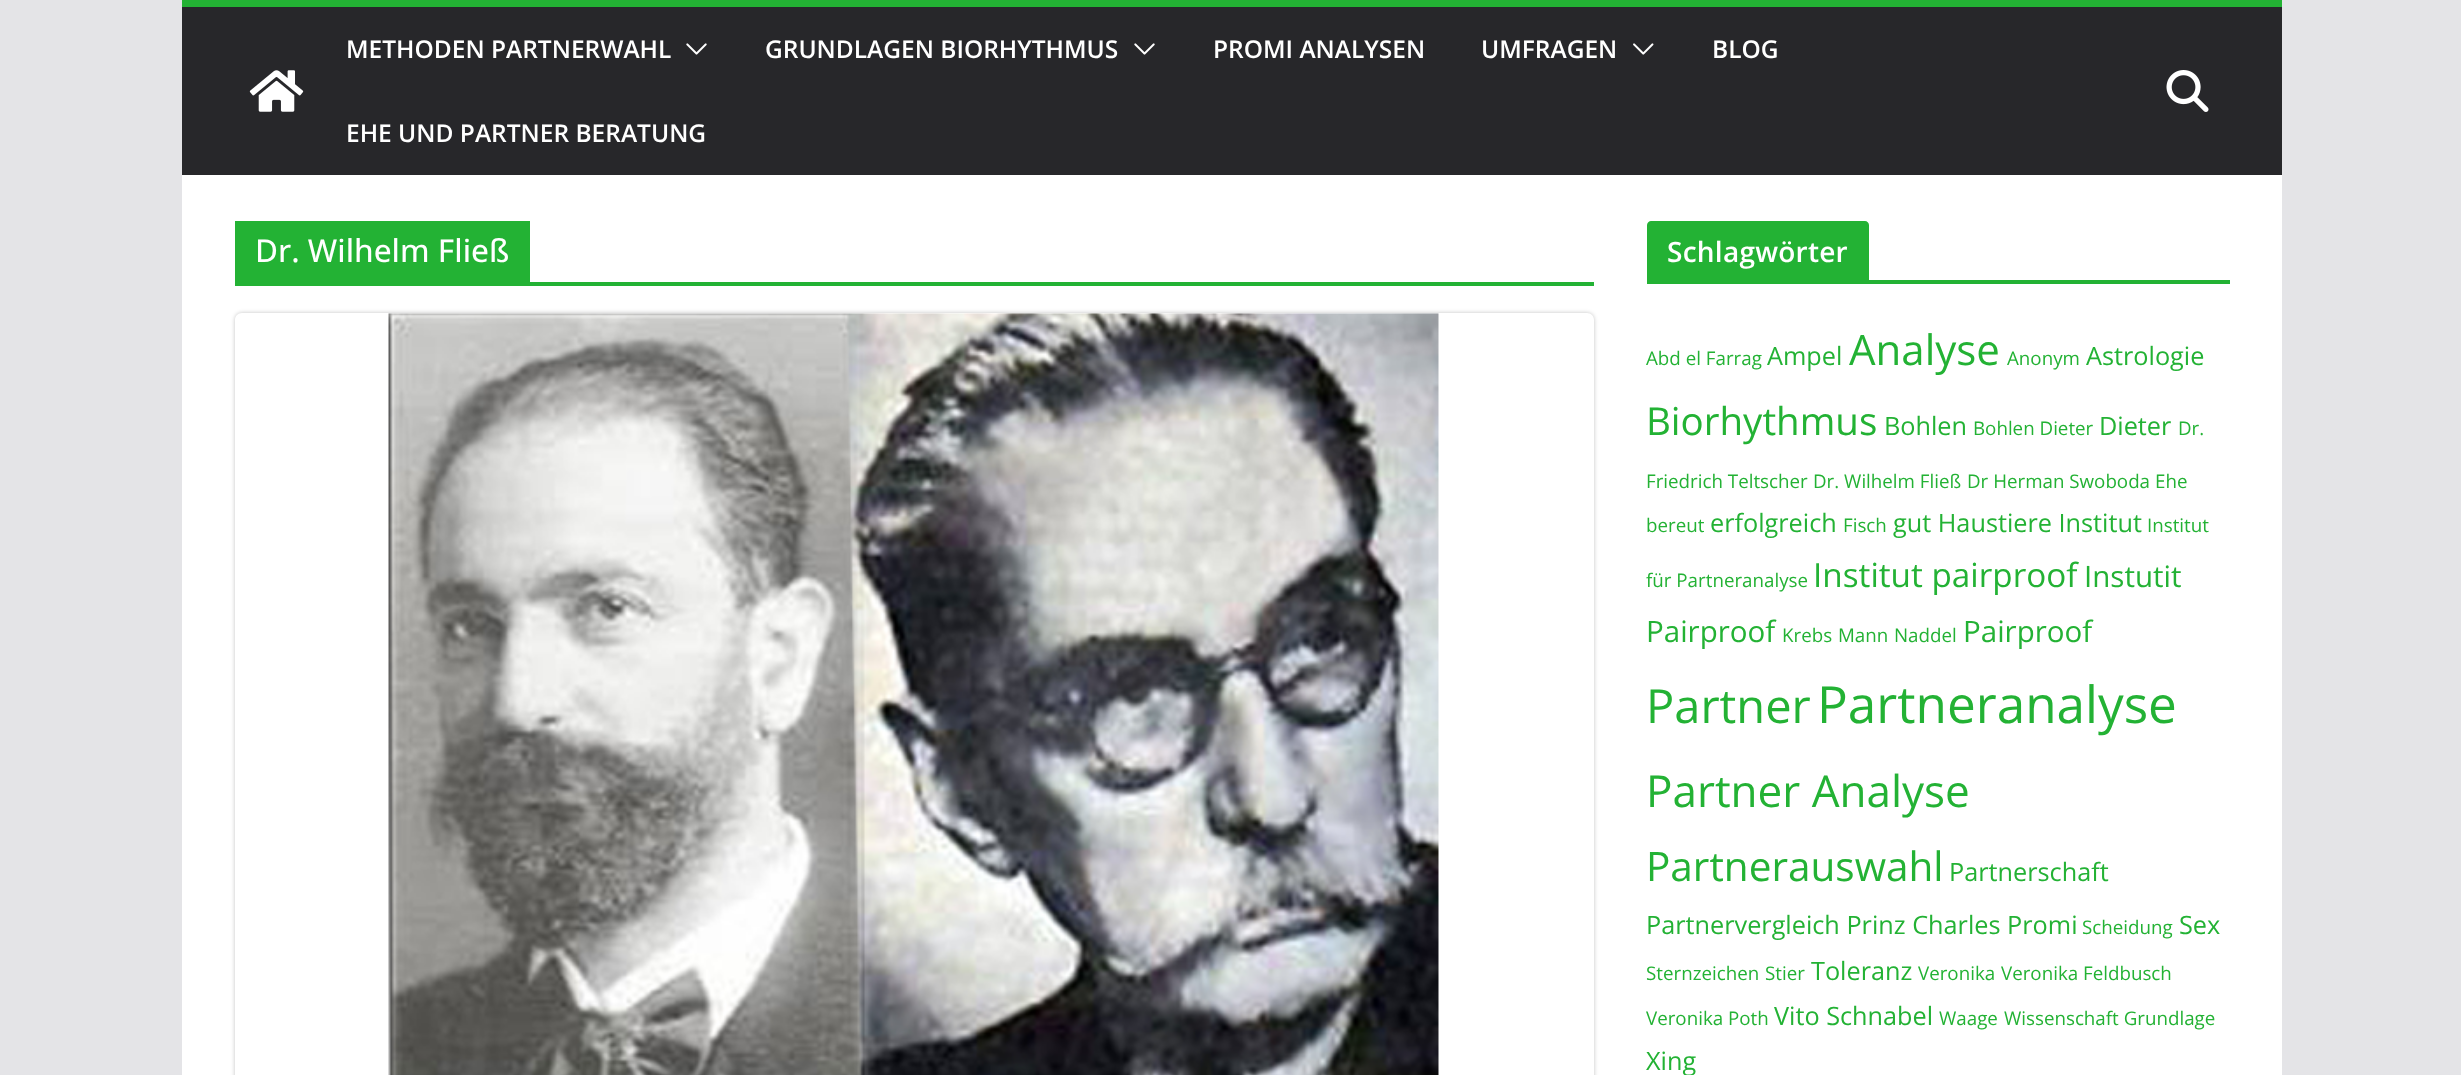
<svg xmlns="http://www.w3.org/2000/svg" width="2461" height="1075">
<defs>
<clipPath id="clip1"><path d="M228 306h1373v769h-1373zm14 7h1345c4 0 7 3 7 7v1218c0 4-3 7-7 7h-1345c-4 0-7-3-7-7v-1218c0-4 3-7 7-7z" clip-rule="evenodd"/></clipPath>
</defs>
<rect width="100%" height="100%" fill="#e4e4e7"/>
<rect x="182" y="7" width="2100" height="168" fill="#27272a"/>
<rect x="182" width="2100" height="7" fill="#23b234"/>
<image x="249" y="70" width="55" height="42" href="media/1.png"/>
<text x="346" y="58" style="font-family:Open Sans;font-size:24.5px;font-weight:600;fill:#fff">METHODEN PARTNERWAHL</text>
<image x="686" y="43" width="21" height="12" href="media/2.png"/>
<text x="765" y="58" style="font-family:Open Sans;font-size:24.5px;font-weight:600;fill:#fff">GRUNDLAGEN BIORHYTHMUS</text>
<image x="1134" y="43" width="21" height="12" href="media/2.png"/>
<text x="1213" y="58" style="font-family:Open Sans;font-size:24.5px;font-weight:600;fill:#fff">PROMI ANALYSEN</text>
<text x="1481" y="58" style="font-family:Open Sans;font-size:24.5px;font-weight:600;fill:#fff">UMFRAGEN</text>
<image x="1633" y="43" width="21" height="12" href="media/3.png"/>
<text x="1712" y="58" style="font-family:Open Sans;font-size:24.5px;font-weight:600;fill:#fff">BLOG</text>
<text x="346" y="142" style="font-family:Open Sans;font-size:24.5px;font-weight:600;fill:#fff">EHE UND PARTNER BERATUNG</text>
<image x="2166" y="70" width="43" height="42" href="media/4.png"/>
<rect x="182" y="175" width="2100" height="900" fill="#fff"/>
<rect x="235" y="282" width="1359" height="4" fill="#23b234"/>
<rect x="235" y="221" width="295" height="61" fill="#23b234"/>
<text x="255" y="262" style="font-family:Open Sans;font-size:31.5px;font-weight:500;fill:#fff">Dr. Wilhelm Fließ</text>
<g clip-path="url(#clip1)">
<rect x="235" y="313" width="1359" height="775" rx="7" fill="#0000003d" filter="blur(2px)"/>
</g>
<image x="388" y="313" width="1051" height="762" href="media/5.png"/>
<rect x="1647" y="280" width="583" height="4" fill="#23b234"/>
<path d="M1651 221h214c2 0 4 2 4 4v55h-222v-55c0-2 2-4 4-4z" fill="#23b234"/>
<text x="1667" y="262" style="font-family:Open Sans;font-size:28px;font-weight:600;letter-spacing:0.25px;fill:#fff">Schlagwörter</text>
<text x="1646" y="365" style="font-family:Open Sans;font-size:18.75px;fill:#23b234">Abd el Farrag</text>
<text x="1767" y="365" style="font-family:Open Sans;font-size:25.25px;fill:#23b234">Ampel</text>
<text x="1849" y="365" style="font-family:Open Sans;font-size:42px;fill:#23b234">Analyse</text>
<text x="2007" y="365" style="font-family:Open Sans;font-size:18.75px;fill:#23b234">Anonym</text>
<text x="2086" y="365" style="font-family:Open Sans;font-size:25.25px;fill:#23b234">Astrologie</text>
<text x="1646" y="435" style="font-family:Open Sans;font-size:38.5px;fill:#23b234">Biorhythmus</text>
<text x="1884" y="435" style="font-family:Open Sans;font-size:25.25px;fill:#23b234">Bohlen</text>
<text x="1973" y="435" style="font-family:Open Sans;font-size:18.75px;fill:#23b234">Bohlen Dieter</text>
<text x="2099" y="435" style="font-family:Open Sans;font-size:25.25px;fill:#23b234">Dieter</text>
<text x="2178" y="435" style="font-family:Open Sans;font-size:18.75px;fill:#23b234">Dr.</text>
<text x="1646" y="488" style="font-family:Open Sans;font-size:18.75px;fill:#23b234">Friedrich Teltscher</text>
<text x="1813" y="488" style="font-family:Open Sans;font-size:18.75px;fill:#23b234">Dr. Wilhelm Fließ</text>
<text x="1967" y="488" style="font-family:Open Sans;font-size:18.75px;fill:#23b234">Dr Herman Swoboda</text>
<text x="2155" y="488" style="font-family:Open Sans;font-size:18.75px;fill:#23b234">Ehe</text>
<text x="1646" y="532" style="font-family:Open Sans;font-size:18.75px;fill:#23b234">bereut</text>
<text x="1710" y="532" style="font-family:Open Sans;font-size:25.25px;fill:#23b234">erfolgreich</text>
<text x="1843" y="532" style="font-family:Open Sans;font-size:18.75px;fill:#23b234">Fisch</text>
<text x="1893" y="532" style="font-family:Open Sans;font-size:25.25px;fill:#23b234">gut Haustiere Institut</text>
<text x="2147" y="532" style="font-family:Open Sans;font-size:18.75px;fill:#23b234">Institut</text>
<text x="1646" y="587" style="font-family:Open Sans;font-size:18.75px;fill:#23b234">für Partneranalyse</text>
<text x="1813" y="587" style="font-family:Open Sans;font-size:33.25px;fill:#23b234">Institut pairproof</text>
<text x="2084" y="587" style="font-family:Open Sans;font-size:29.5px;fill:#23b234">Instutit</text>
<text x="1646" y="642" style="font-family:Open Sans;font-size:29.5px;fill:#23b234">Pairproof</text>
<text x="1782" y="642" style="font-family:Open Sans;font-size:18.75px;fill:#23b234">Krebs</text>
<text x="1838" y="642" style="font-family:Open Sans;font-size:18.75px;fill:#23b234">Mann</text>
<text x="1894" y="642" style="font-family:Open Sans;font-size:18.75px;fill:#23b234">Naddel</text>
<text x="1963" y="642" style="font-family:Open Sans;font-size:29.5px;fill:#23b234">Pairproof</text>
<text x="1646" y="723" style="font-family:Open Sans;font-size:47px;fill:#23b234">Partner</text>
<text x="1817" y="723" style="font-family:Open Sans;font-size:51.25px;fill:#23b234">Partneranalyse</text>
<text x="1646" y="807" style="font-family:Open Sans;font-size:44px;fill:#23b234">Partner Analyse</text>
<text x="1646" y="881" style="font-family:Open Sans;font-size:40.5px;fill:#23b234">Partnerauswahl</text>
<text x="1949" y="881" style="font-family:Open Sans;font-size:25.25px;fill:#23b234">Partnerschaft</text>
<text x="1646" y="934" style="font-family:Open Sans;font-size:25.25px;fill:#23b234">Partnervergleich Prinz Charles Promi</text>
<text x="2082" y="934" style="font-family:Open Sans;font-size:18.75px;fill:#23b234">Scheidung</text>
<text x="2179" y="934" style="font-family:Open Sans;font-size:25.25px;fill:#23b234">Sex</text>
<text x="1646" y="980" style="font-family:Open Sans;font-size:18.75px;fill:#23b234">Sternzeichen</text>
<text x="1765" y="980" style="font-family:Open Sans;font-size:18.75px;fill:#23b234">Stier</text>
<text x="1811" y="980" style="font-family:Open Sans;font-size:25.25px;fill:#23b234">Toleranz</text>
<text x="1918" y="980" style="font-family:Open Sans;font-size:18.75px;fill:#23b234">Veronika</text>
<text x="2001" y="980" style="font-family:Open Sans;font-size:18.75px;fill:#23b234">Veronika Feldbusch</text>
<text x="1646" y="1025" style="font-family:Open Sans;font-size:18.75px;fill:#23b234">Veronika Poth</text>
<text x="1774" y="1025" style="font-family:Open Sans;font-size:25.25px;fill:#23b234">Vito Schnabel</text>
<text x="1939" y="1025" style="font-family:Open Sans;font-size:18.75px;fill:#23b234">Waage</text>
<text x="2004" y="1025" style="font-family:Open Sans;font-size:18.75px;fill:#23b234">Wissenschaft Grundlage</text>
<text x="1646" y="1070" style="font-family:Open Sans;font-size:25.25px;fill:#23b234">Xing</text>
</svg>
